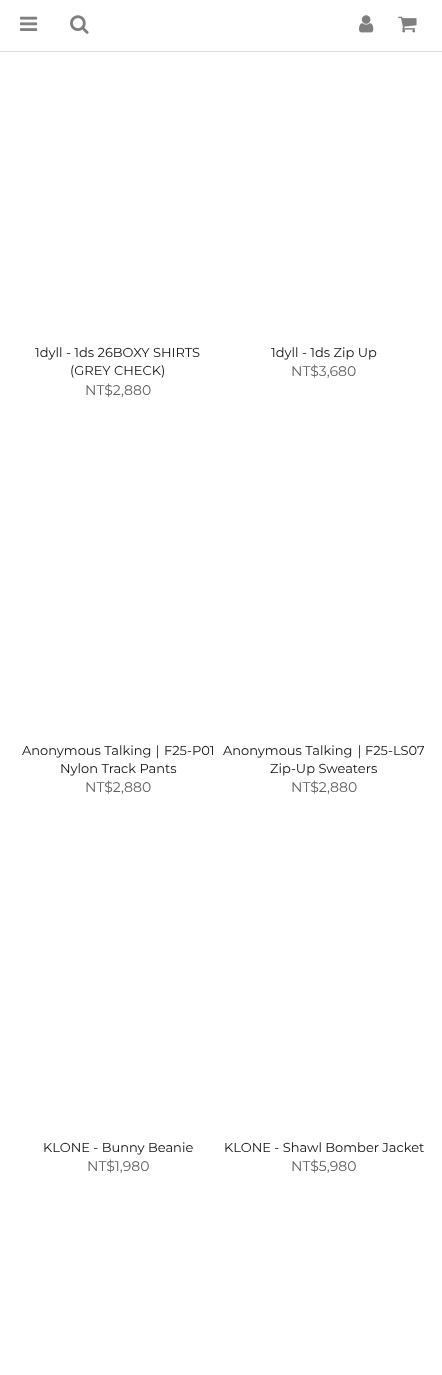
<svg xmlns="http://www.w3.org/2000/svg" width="442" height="1375">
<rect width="100%" height="100%" fill="#fff"/>
<rect y="51" width="442" height="1" fill="#ddd"/>
<image x="20" y="16" width="18" height="15" href="media/1.png"/>
<image x="70" y="15" width="19" height="19" href="media/2.png"/>
<image x="359" y="15" width="15" height="18" href="media/3.png"/>
<image x="398" y="16" width="19" height="17" href="media/4.png"/>
<text x="35" y="357" style="font-family:Montserrat;font-size:13px;fill:#111">1dyll - 1ds 26BOXY SHIRTS</text>
<text x="70" y="375" style="font-family:Montserrat;font-size:13px;fill:#111">(GREY CHECK)</text>
<text x="85" y="395" style="font-family:Montserrat;font-size:14px;fill:#606060">NT$2,880</text>
<text x="271" y="357" style="font-family:Montserrat;font-size:13px;fill:#111">1dyll - 1ds Zip Up</text>
<text x="291" y="376" style="font-family:Montserrat;font-size:14px;fill:#606060">NT$3,680</text>
<text x="22" y="755" style="font-family:Montserrat;font-size:13px;fill:#111">Anonymous Talking</text>
<text x="151" y="755" style="font-family:WenQuanYi Zen Hei;font-size:13px;font-weight:500;fill:#111">｜</text>
<text x="164" y="755" style="font-family:Montserrat;font-size:13px;fill:#111">F25-P01</text>
<text x="60" y="773" style="font-family:Montserrat;font-size:13px;fill:#111">Nylon Track Pants</text>
<text x="85" y="792" style="font-family:Montserrat;font-size:14px;fill:#606060">NT$2,880</text>
<text x="223" y="755" style="font-family:Montserrat;font-size:13px;fill:#111">Anonymous Talking</text>
<text x="353" y="755" style="font-family:WenQuanYi Zen Hei;font-size:13px;font-weight:500;fill:#111">｜</text>
<text x="365" y="755" style="font-family:Montserrat;font-size:13px;fill:#111">F25-LS07</text>
<text x="270" y="773" style="font-family:Montserrat;font-size:13px;fill:#111">Zip-Up Sweaters</text>
<text x="291" y="792" style="font-family:Montserrat;font-size:14px;fill:#606060">NT$2,880</text>
<text x="43" y="1152" style="font-family:Montserrat;font-size:13px;fill:#111">KLONE - Bunny Beanie</text>
<text x="87" y="1171" style="font-family:Montserrat;font-size:14px;fill:#606060">NT$1,980</text>
<text x="224" y="1152" style="font-family:Montserrat;font-size:13px;fill:#111">KLONE - Shawl Bomber Jacket</text>
<text x="291" y="1171" style="font-family:Montserrat;font-size:14px;fill:#606060">NT$5,980</text>
</svg>
